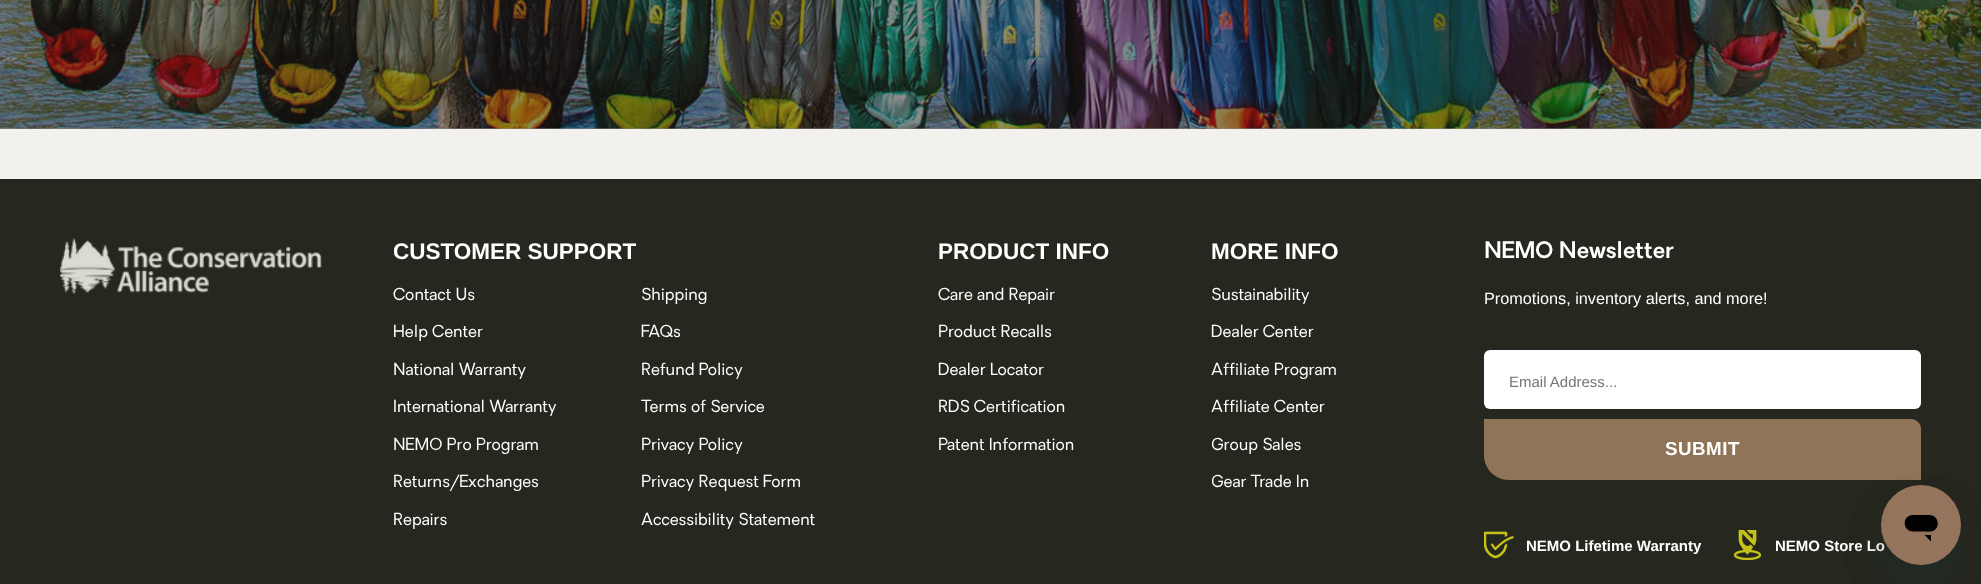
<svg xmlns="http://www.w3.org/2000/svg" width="1981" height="584">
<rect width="100%" height="100%" fill="#f2f1ee"/>
<rect y="128" width="1981" height="1" fill="#8a8784"/>
<image x="0" y="0" width="1981" height="129" href="media/1.png"/>
<rect y="179" width="1981" height="405" fill="#26271f"/>
<image x="60" y="238" width="262" height="56" href="media/2.png"/>
<text x="393" y="259" style="font-family:Liberation Sans;font-size:22.5px;font-weight:bold;fill:#fff">CUSTOMER SUPPORT</text>
<text x="393" y="300" style="font-family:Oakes;font-size:16.25px;fill:#fff">Contact Us</text>
<text x="641" y="300" style="font-family:Oakes;font-size:16.25px;fill:#fff">Shipping</text>
<text x="393" y="337" style="font-family:Oakes;font-size:16.25px;fill:#fff">Help Center</text>
<text x="641" y="337" style="font-family:Oakes;font-size:16.25px;fill:#fff">FAQs</text>
<text x="393" y="375" style="font-family:Oakes;font-size:16.25px;fill:#fff">National Warranty</text>
<text x="641" y="375" style="font-family:Oakes;font-size:16.25px;fill:#fff">Refund Policy</text>
<text x="393" y="412" style="font-family:Oakes;font-size:16.25px;fill:#fff">International Warranty</text>
<text x="641" y="412" style="font-family:Oakes;font-size:16.25px;fill:#fff">Terms of Service</text>
<text x="393" y="450" style="font-family:Oakes;font-size:16.25px;fill:#fff">NEMO Pro Program</text>
<text x="641" y="450" style="font-family:Oakes;font-size:16.25px;fill:#fff">Privacy Policy</text>
<text x="393" y="487" style="font-family:Oakes;font-size:16.25px;fill:#fff">Returns/Exchanges</text>
<text x="641" y="487" style="font-family:Oakes;font-size:16.25px;fill:#fff">Privacy Request Form</text>
<text x="393" y="525" style="font-family:Oakes;font-size:16.25px;fill:#fff">Repairs</text>
<text x="641" y="525" style="font-family:Oakes;font-size:16.25px;fill:#fff">Accessibility Statement</text>
<text x="938" y="259" style="font-family:Liberation Sans;font-size:22.5px;font-weight:bold;fill:#fff">PRODUCT INFO</text>
<text x="938" y="300" style="font-family:Oakes;font-size:16.25px;fill:#fff">Care and Repair</text>
<text x="938" y="337" style="font-family:Oakes;font-size:16.25px;fill:#fff">Product Recalls</text>
<text x="938" y="375" style="font-family:Oakes;font-size:16.25px;fill:#fff">Dealer Locator</text>
<text x="938" y="412" style="font-family:Oakes;font-size:16.25px;fill:#fff">RDS Certification</text>
<text x="938" y="450" style="font-family:Oakes;font-size:16.25px;fill:#fff">Patent Information</text>
<text x="1211" y="259" style="font-family:Liberation Sans;font-size:22.5px;font-weight:bold;fill:#fff">MORE INFO</text>
<text x="1211" y="300" style="font-family:Oakes;font-size:16.25px;fill:#fff">Sustainability</text>
<text x="1211" y="337" style="font-family:Oakes;font-size:16.25px;fill:#fff">Dealer Center</text>
<text x="1211" y="375" style="font-family:Oakes;font-size:16.25px;fill:#fff">Affiliate Program</text>
<text x="1211" y="412" style="font-family:Oakes;font-size:16.25px;fill:#fff">Affiliate Center</text>
<text x="1211" y="450" style="font-family:Oakes;font-size:16.25px;fill:#fff">Group Sales</text>
<text x="1211" y="487" style="font-family:Oakes;font-size:16.25px;fill:#fff">Gear Trade In</text>
<text x="1484" y="258" style="font-family:Oakes;font-size:22.5px;font-weight:600;fill:#fff">NEMO Newsletter</text>
<text x="1484" y="304" style="font-family:Liberation Sans;font-size:16.25px;fill:#fff">Promotions, inventory alerts, and more!</text>
<rect x="1484" y="350" width="437" height="59" rx="6" fill="#fff"/>
<text x="1509" y="387" style="font-family:Liberation Sans;font-size:15px;fill:#757575">Email Address...</text>
<path d="M1484 419h427c5.5 0 10 4.5 10 10v51h-412c-14 0-25-11-25-25z" fill="#907458"/>
<text x="1665" y="455" style="font-family:Liberation Sans;font-size:18.75px;font-weight:bold;letter-spacing:0.5px;fill:#fff">SUBMIT</text>
<image x="1484" y="531" width="30" height="28" href="media/3.png"/>
<text x="1526" y="551" style="font-family:Liberation Sans;font-size:15px;font-weight:bold;fill:#fff">NEMO Lifetime Warranty</text>
<image x="1733" y="530" width="29" height="30" href="media/4.png"/>
<text x="1775" y="551" style="font-family:Liberation Sans;font-size:15px;font-weight:bold;fill:#fff">NEMO Store Lo</text>
<rect x="1881" y="510" width="80" height="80" rx="40" fill="#17494d26" filter="blur(19px)"/>
<rect x="1881" y="510" width="80" height="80" rx="40" fill="#24242426" filter="blur(19px)"/>
<circle cx="1921" cy="525" r="40" fill="#94745c"/>
<path d="M1924.5 535l6.5 6.5v-6.5zm-11.5-20c-11 0-11 16 0 16.5h11c3 0 6 .5 9-.5c8-3.5 5.5-16-3.5-16z" fill="#000"/>
</svg>
